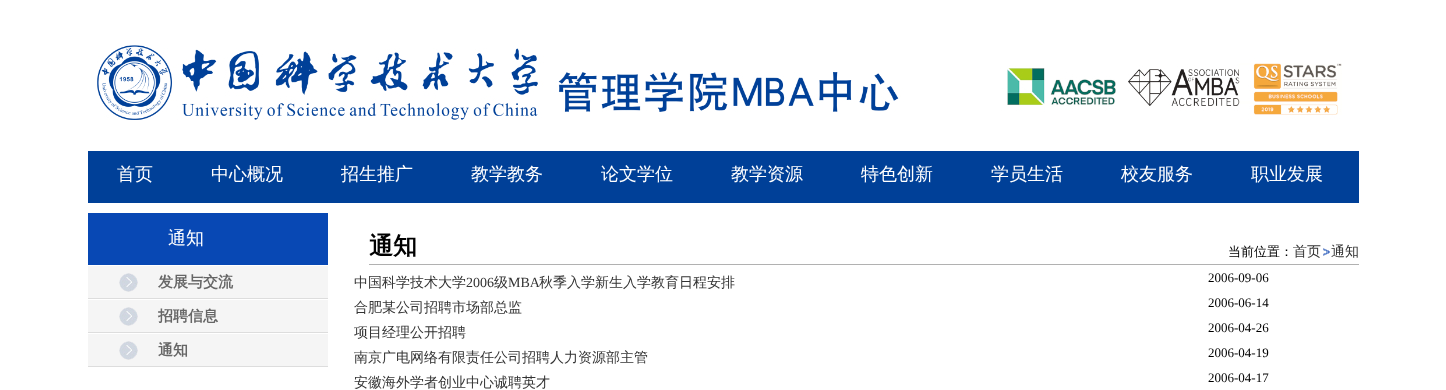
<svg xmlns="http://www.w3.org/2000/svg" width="1446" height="390">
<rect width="100%" height="100%" fill="#fff"/>
<image x="97" y="45" width="1245" height="75" href="media/1.png"/>
<rect x="88" y="151" width="1271" height="52" fill="#004098"/>
<text x="117" y="180" style="font-family:WenQuanYi Zen Hei;font-size:18px;font-weight:500;fill:#fff">首页</text>
<text x="211" y="180" style="font-family:WenQuanYi Zen Hei;font-size:18px;font-weight:500;fill:#fff">中心概况</text>
<text x="341" y="180" style="font-family:WenQuanYi Zen Hei;font-size:18px;font-weight:500;fill:#fff">招生推广</text>
<text x="471" y="180" style="font-family:WenQuanYi Zen Hei;font-size:18px;font-weight:500;fill:#fff">教学教务</text>
<text x="601" y="180" style="font-family:WenQuanYi Zen Hei;font-size:18px;font-weight:500;fill:#fff">论文学位</text>
<text x="731" y="180" style="font-family:WenQuanYi Zen Hei;font-size:18px;font-weight:500;fill:#fff">教学资源</text>
<text x="861" y="180" style="font-family:WenQuanYi Zen Hei;font-size:18px;font-weight:500;fill:#fff">特色创新</text>
<text x="991" y="180" style="font-family:WenQuanYi Zen Hei;font-size:18px;font-weight:500;fill:#fff">学员生活</text>
<text x="1121" y="180" style="font-family:WenQuanYi Zen Hei;font-size:18px;font-weight:500;fill:#fff">校友服务</text>
<text x="1251" y="180" style="font-family:WenQuanYi Zen Hei;font-size:18px;font-weight:500;fill:#fff">职业发展</text>
<rect x="88" y="213" width="240" height="52" fill="#0848b4"/>
<text x="168" y="244" style="font-family:WenQuanYi Zen Hei;font-size:18px;font-weight:500;fill:#fff">通知</text>
<rect x="88" y="266" width="240" height="32" fill="#f5f5f5"/>
<image x="119" y="273" width="19" height="19" href="media/2.png"/>
<rect x="88" y="298" width="240" height="1" fill="#ddd"/>
<text x="158" y="287" style="font-family:WenQuanYi Zen Hei;font-size:15px;font-weight:bold;fill:#666">发展与交流</text>
<rect x="88" y="300" width="240" height="32" fill="#f5f5f5"/>
<image x="119" y="307" width="19" height="19" href="media/2.png"/>
<rect x="88" y="332" width="240" height="1" fill="#ddd"/>
<text x="158" y="321" style="font-family:WenQuanYi Zen Hei;font-size:15px;font-weight:bold;fill:#666">招聘信息</text>
<rect x="88" y="334" width="240" height="32" fill="#f5f5f5"/>
<image x="119" y="341" width="19" height="19" href="media/2.png"/>
<rect x="88" y="366" width="240" height="1" fill="#ddd"/>
<text x="158" y="355" style="font-family:WenQuanYi Zen Hei;font-size:15px;font-weight:bold;fill:#666">通知</text>
<rect x="369" y="264" width="990" height="1" fill="#b1b1b1"/>
<text x="369" y="254" style="font-family:WenQuanYi Zen Hei;font-size:24px;font-weight:bold;fill:#000">通知</text>
<text x="1228" y="256" style="font-family:WenQuanYi Zen Hei;font-size:13px;font-weight:500;fill:#000">当前位置：</text>
<text x="1293" y="256" style="font-family:WenQuanYi Zen Hei;font-size:14px;font-weight:500;fill:#333">首页</text>
<image x="1323" y="248" width="8" height="8" href="media/3.png"/>
<text x="1331" y="256" style="font-family:WenQuanYi Zen Hei;font-size:14px;font-weight:500;fill:#333">通知</text>
<text x="354" y="287" style="font-family:WenQuanYi Zen Hei;font-size:14px;font-weight:500;fill:#333">中国科学技术大学</text>
<text x="466" y="287" style="font-family:Liberation Serif;font-size:14px;fill:#333">2006</text>
<text x="494" y="287" style="font-family:WenQuanYi Zen Hei;font-size:14px;font-weight:500;fill:#333">级</text>
<text x="508" y="287" style="font-family:Liberation Serif;font-size:14px;fill:#333">MBA</text>
<text x="539" y="287" style="font-family:WenQuanYi Zen Hei;font-size:14px;font-weight:500;fill:#333">秋季入学新生入学教育日程安排</text>
<text x="1208" y="282" style="font-family:Liberation Serif;font-size:13px;fill:#000">2006-09-06</text>
<text x="354" y="312" style="font-family:WenQuanYi Zen Hei;font-size:14px;font-weight:500;fill:#333">合肥某公司招聘市场部总监</text>
<text x="1208" y="307" style="font-family:Liberation Serif;font-size:13px;fill:#000">2006-06-14</text>
<text x="354" y="337" style="font-family:WenQuanYi Zen Hei;font-size:14px;font-weight:500;fill:#333">项目经理公开招聘</text>
<text x="1208" y="332" style="font-family:Liberation Serif;font-size:13px;fill:#000">2006-04-26</text>
<text x="354" y="362" style="font-family:WenQuanYi Zen Hei;font-size:14px;font-weight:500;fill:#333">南京广电网络有限责任公司招聘人力资源部主管</text>
<text x="1208" y="357" style="font-family:Liberation Serif;font-size:13px;fill:#000">2006-04-19</text>
<text x="354" y="387" style="font-family:WenQuanYi Zen Hei;font-size:14px;font-weight:500;fill:#333">安徽海外学者创业中心诚聘英才</text>
<text x="1208" y="382" style="font-family:Liberation Serif;font-size:13px;fill:#000">2006-04-17</text>
</svg>
